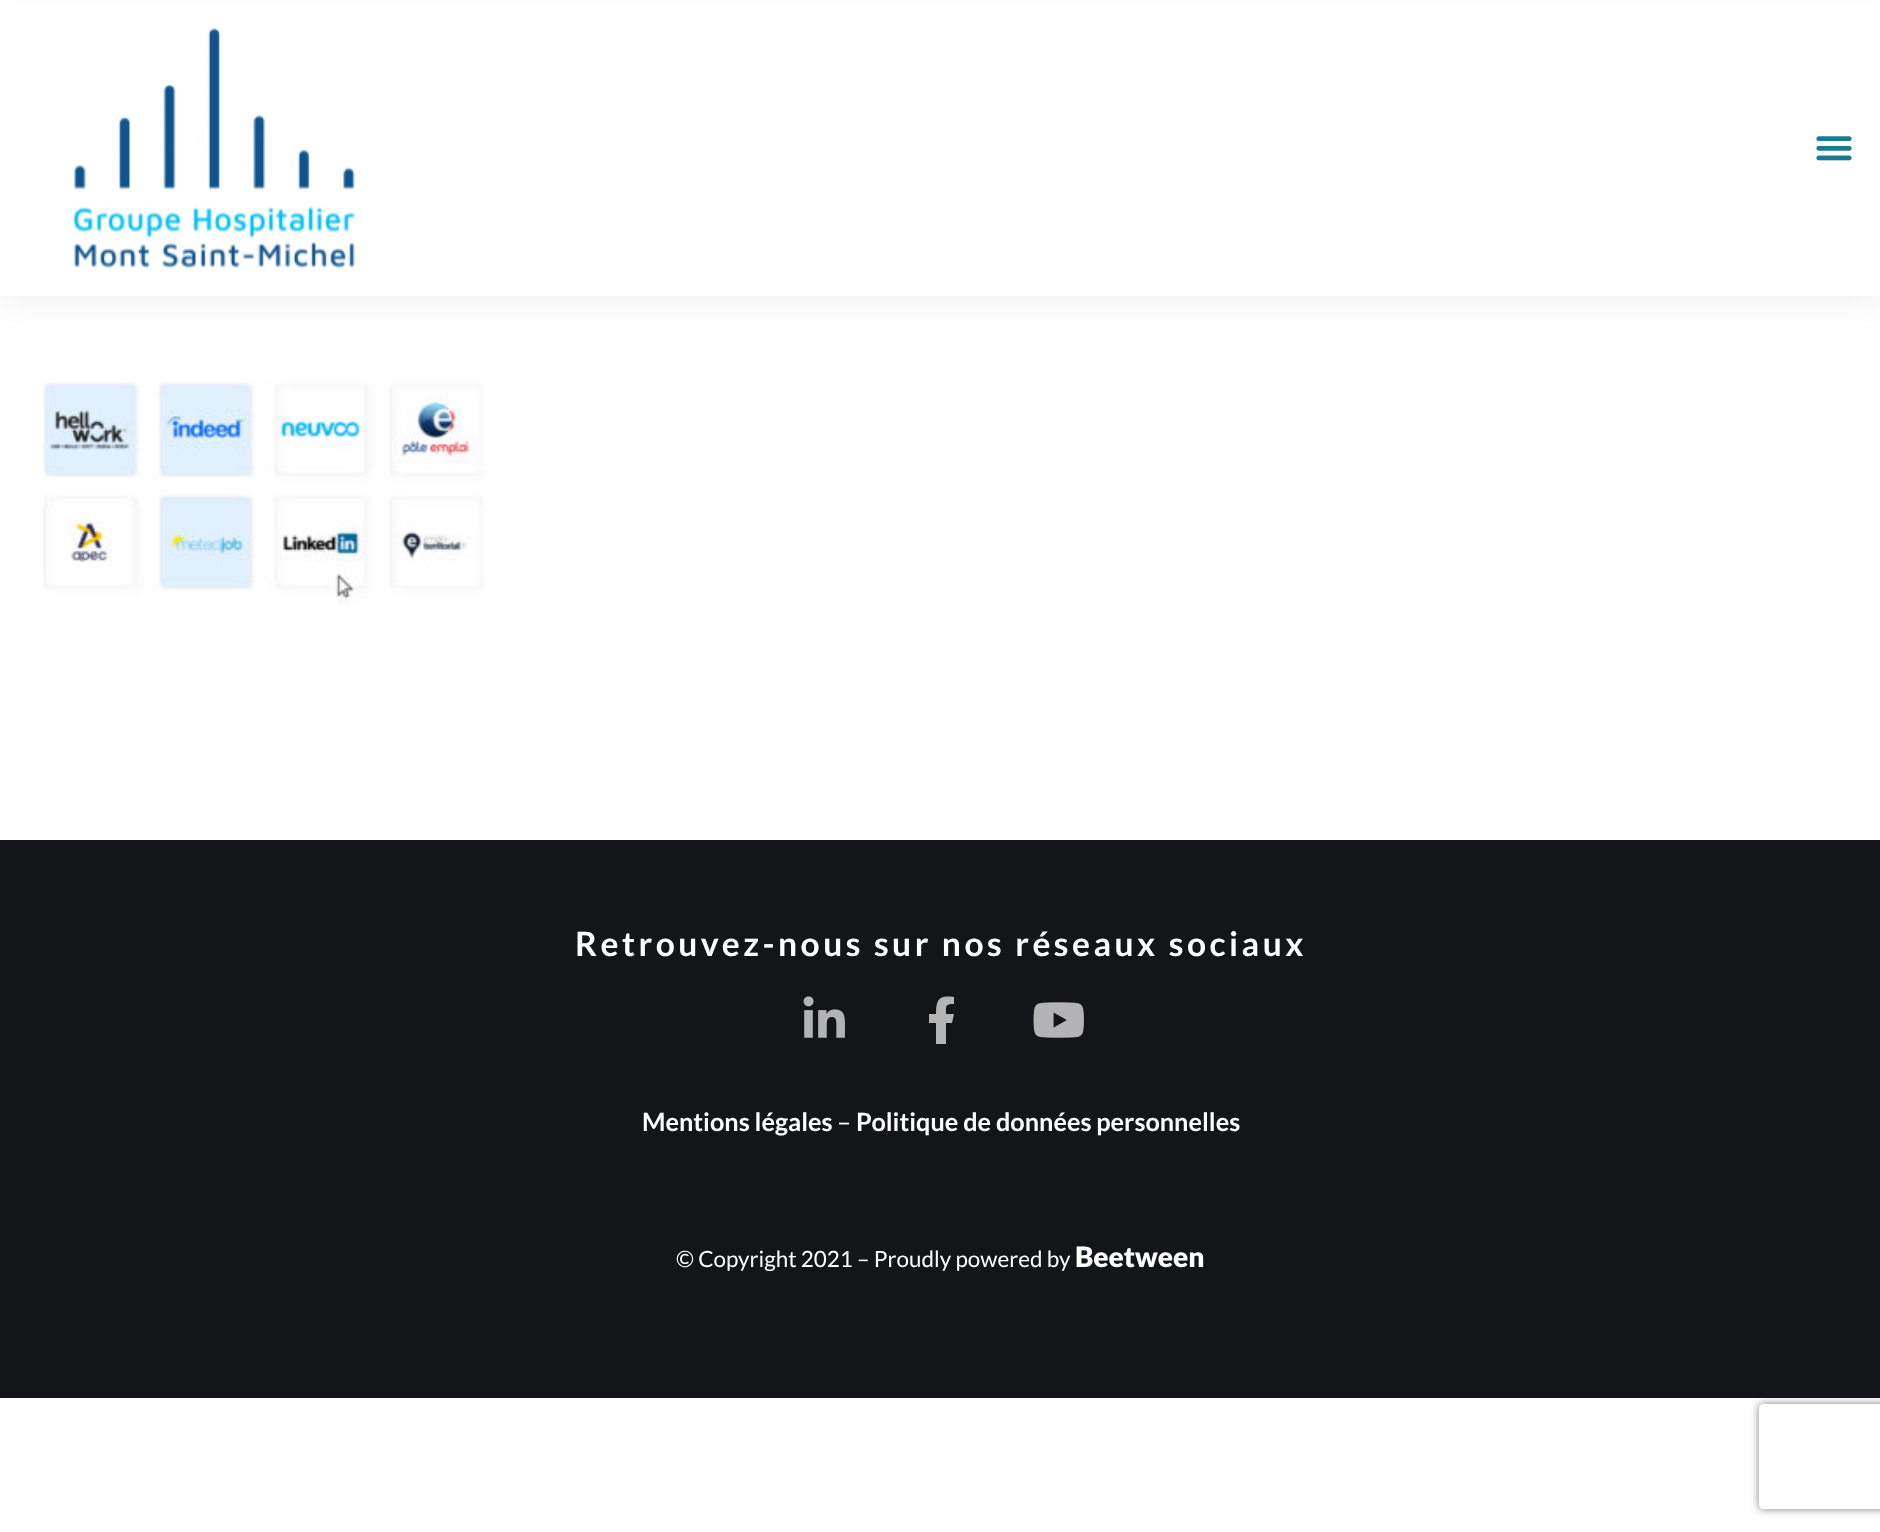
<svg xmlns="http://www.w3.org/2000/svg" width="1880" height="1532">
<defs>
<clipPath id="clip1"><path d="M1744 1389h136v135h-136zm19 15h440c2 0 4 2 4 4v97c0 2-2 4-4 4h-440c-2 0-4-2-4-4v-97c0-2 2-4 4-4z" clip-rule="evenodd"/></clipPath>
</defs>
<rect width="100%" height="100%" fill="#fff"/>
<rect x="5" y="14" width="1875" height="289" fill="#8887871f" filter="blur(14px)"/>
<rect y="1" width="1880" height="295" fill="#fff"/>
<image x="74" y="28" width="281" height="241" href="media/1.png"/>
<image x="1816" y="136" width="36" height="25" href="media/2.png"/>
<image x="42" y="380" width="442" height="224" href="media/3.png"/>
<g clip-path="url(#clip1)">
<rect x="1759" y="1404" width="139" height="105" rx="4" fill="#808080" filter="blur(4.5px)"/>
</g>
<rect y="840" width="1880" height="558" fill="#141519"/>
<text x="575" y="956" style="font-family:Lato;font-size:33.6px;font-weight:bold;letter-spacing:3.5px;fill:#fff">Retrouvez-nous sur nos réseaux sociaux</text>
<image x="803" y="996" width="42" height="42" href="media/4.png"/>
<path d="M952 1023h-6v21h-10v-21h-7v-9h7c0-15 3-19 18-17v7c-9 0-8 2-8 10h8z" fill="#b4b4b5"/>
<image x="1033" y="1002" width="51" height="36" href="media/5.png"/>
<text x="642" y="1131" style="font-family:Lato;font-size:25.25px;font-weight:bold;fill:#fff">Mentions légales</text>
<text x="837" y="1131" style="font-family:Lato;font-size:25.25px;fill:#fff">–</text>
<text x="856" y="1131" style="font-family:Lato;font-size:25.25px;font-weight:bold;fill:#fff">Politique de données personnelles</text>
<text x="676" y="1267" style="font-family:Lato;font-size:22.4px;fill:#fff">© Copyright 2021 – Proudly powered by</text>
<text x="1075" y="1267" style="font-family:Lato;font-size:28px;font-weight:900;fill:#fff">Beetween</text>
</svg>
